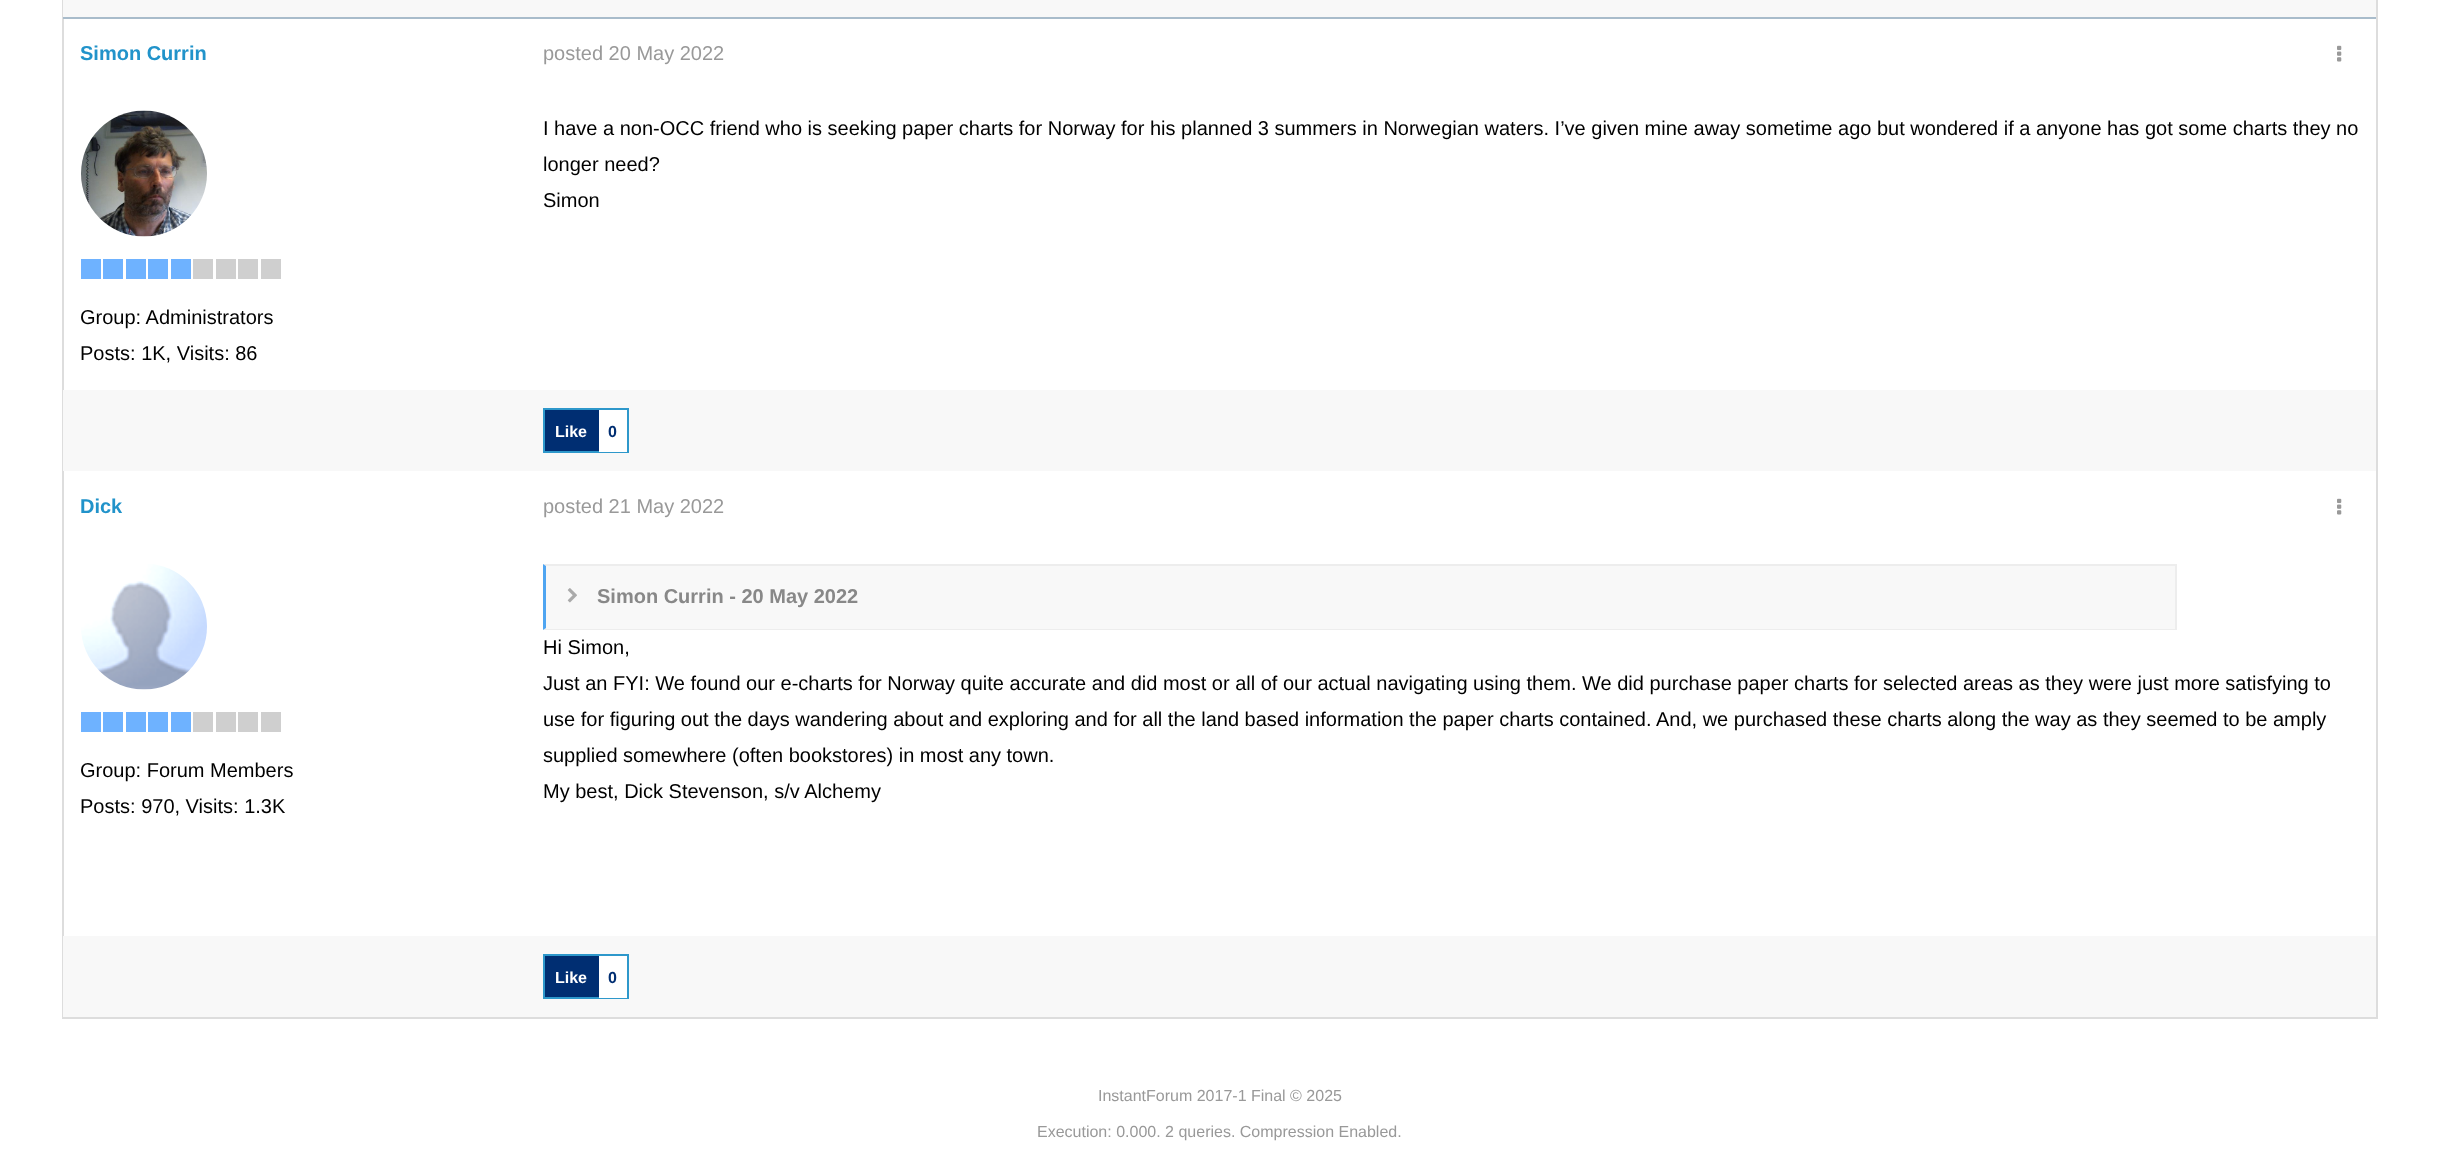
<svg xmlns="http://www.w3.org/2000/svg" width="2438" height="1158">
<rect width="100%" height="100%" fill="#fff"/>
<rect x="2376" width="2" height="1017" fill="#ddd"/>
<rect x="62" width="2" height="1017" fill="#ddd"/>
<rect x="63" width="2313" height="17" fill="#f8f8f8"/>
<rect x="63" y="17" width="2313" height="2" fill="#a9bccb"/>
<text x="80" y="60" style="font-family:Liberation Sans;font-size:20px;font-weight:bold;fill:#2193ca">Simon Currin</text>
<text x="543" y="60" style="font-family:Liberation Sans;font-size:20px;fill:#999">posted 20 May 2022</text>
<image x="2337" y="45" width="5" height="17" href="media/1.png"/>
<text x="543" y="135" style="font-family:Liberation Sans;font-size:20px;fill:#000">I have a non-OCC friend who is seeking paper charts for Norway for his planned 3 summers in Norwegian waters. I’ve given mine away sometime ago but wondered if a anyone has got some charts they no</text>
<text x="543" y="171" style="font-family:Liberation Sans;font-size:20px;fill:#000">longer need?</text>
<text x="543" y="207" style="font-family:Liberation Sans;font-size:20px;fill:#000">Simon</text>
<image x="81" y="110" width="126" height="127" href="media/2.png"/>
<rect x="81" y="259" width="20" height="20" fill="#6eb2ff"/>
<rect x="103" y="259" width="20" height="20" fill="#6eb2ff"/>
<rect x="126" y="259" width="20" height="20" fill="#6eb2ff"/>
<rect x="148" y="259" width="20" height="20" fill="#6eb2ff"/>
<rect x="171" y="259" width="20" height="20" fill="#6eb2ff"/>
<rect x="193" y="259" width="20" height="20" fill="#cfcfcf"/>
<rect x="216" y="259" width="20" height="20" fill="#cfcfcf"/>
<rect x="238" y="259" width="20" height="20" fill="#cfcfcf"/>
<rect x="261" y="259" width="20" height="20" fill="#cfcfcf"/>
<text x="80" y="324" style="font-family:Liberation Sans;font-size:20px;fill:#000">Group: Administrators</text>
<text x="80" y="360" style="font-family:Liberation Sans;font-size:20px;fill:#000">Posts: 1K, Visits: 86</text>
<rect x="63" y="390" width="2313" height="81" fill="#f8f8f8"/>
<rect x="545" y="410" width="54" height="41" fill="#002e72"/>
<rect x="544" y="409" width="84" height="43" fill="none" stroke="#2e98cb" stroke-width="2"/>
<text x="555" y="437" style="font-family:Liberation Sans;font-size:16px;font-weight:bold;fill:#fff">Like</text>
<rect x="599" y="410" width="28" height="42" fill="#fff"/>
<text x="608" y="437" style="font-family:Liberation Sans;font-size:16px;font-weight:bold;fill:#002e72">0</text>
<text x="80" y="513" style="font-family:Liberation Sans;font-size:20px;font-weight:bold;fill:#2193ca">Dick</text>
<text x="543" y="513" style="font-family:Liberation Sans;font-size:20px;fill:#999">posted 21 May 2022</text>
<image x="2337" y="498" width="5" height="17" href="media/1.png"/>
<image x="81" y="564" width="126" height="126" href="media/3.png"/>
<rect x="81" y="712" width="20" height="20" fill="#6eb2ff"/>
<rect x="103" y="712" width="20" height="20" fill="#6eb2ff"/>
<rect x="126" y="712" width="20" height="20" fill="#6eb2ff"/>
<rect x="148" y="712" width="20" height="20" fill="#6eb2ff"/>
<rect x="171" y="712" width="20" height="20" fill="#6eb2ff"/>
<rect x="193" y="712" width="20" height="20" fill="#cfcfcf"/>
<rect x="216" y="712" width="20" height="20" fill="#cfcfcf"/>
<rect x="238" y="712" width="20" height="20" fill="#cfcfcf"/>
<rect x="261" y="712" width="20" height="20" fill="#cfcfcf"/>
<text x="80" y="777" style="font-family:Liberation Sans;font-size:20px;fill:#000">Group: Forum Members</text>
<text x="80" y="813" style="font-family:Liberation Sans;font-size:20px;fill:#000">Posts: 970, Visits: 1.3K</text>
<path d="M543 564h1633l-1 2h-1629z" fill="#ededed"/>
<rect x="2175" y="564" width="2" height="66" fill="#ededed"/>
<path d="M2176 630h-1633l3-2h1629z" fill="#ededed"/>
<path d="M543 630v-66l3 2v62z" fill="#4fa5f1"/>
<rect x="546" y="566" width="1629" height="63" fill="#f8f8f8"/>
<image x="567" y="588" width="10" height="15" href="media/4.png"/>
<text x="597" y="603" style="font-family:Liberation Sans;font-size:20px;font-weight:bold;fill:#888">Simon Currin - 20 May 2022</text>
<text x="543" y="654" style="font-family:Liberation Sans;font-size:20px;fill:#000">Hi Simon,</text>
<text x="543" y="690" style="font-family:Liberation Sans;font-size:20px;fill:#000">Just an FYI: We found our e-charts for Norway quite accurate and did most or all of our actual navigating using them. We did purchase paper charts for selected areas as they were just more satisfying to</text>
<text x="543" y="726" style="font-family:Liberation Sans;font-size:20px;fill:#000">use for figuring out the days wandering about and exploring and for all the land based information the paper charts contained. And, we purchased these charts along the way as they seemed to be amply</text>
<text x="543" y="762" style="font-family:Liberation Sans;font-size:20px;fill:#000">supplied somewhere (often bookstores) in most any town.</text>
<text x="543" y="798" style="font-family:Liberation Sans;font-size:20px;fill:#000">My best, Dick Stevenson, s/v Alchemy</text>
<rect x="63" y="936" width="2313" height="81" fill="#f8f8f8"/>
<rect x="545" y="956" width="54" height="41" fill="#002e72"/>
<rect x="544" y="955" width="84" height="43" fill="none" stroke="#2e98cb" stroke-width="2"/>
<text x="555" y="983" style="font-family:Liberation Sans;font-size:16px;font-weight:bold;fill:#fff">Like</text>
<rect x="599" y="956" width="28" height="42" fill="#fff"/>
<text x="608" y="983" style="font-family:Liberation Sans;font-size:16px;font-weight:bold;fill:#002e72">0</text>
<rect x="62" y="1017" width="2316" height="2" fill="#ddd"/>
<text x="1098" y="1101" style="font-family:Liberation Sans;font-size:16px;fill:#999">InstantForum 2017-1 Final © 2025</text>
<text x="1037" y="1137" style="font-family:Liberation Sans;font-size:16px;fill:#999">Execution: 0.000. 2 queries. Compression Enabled.</text>
</svg>
